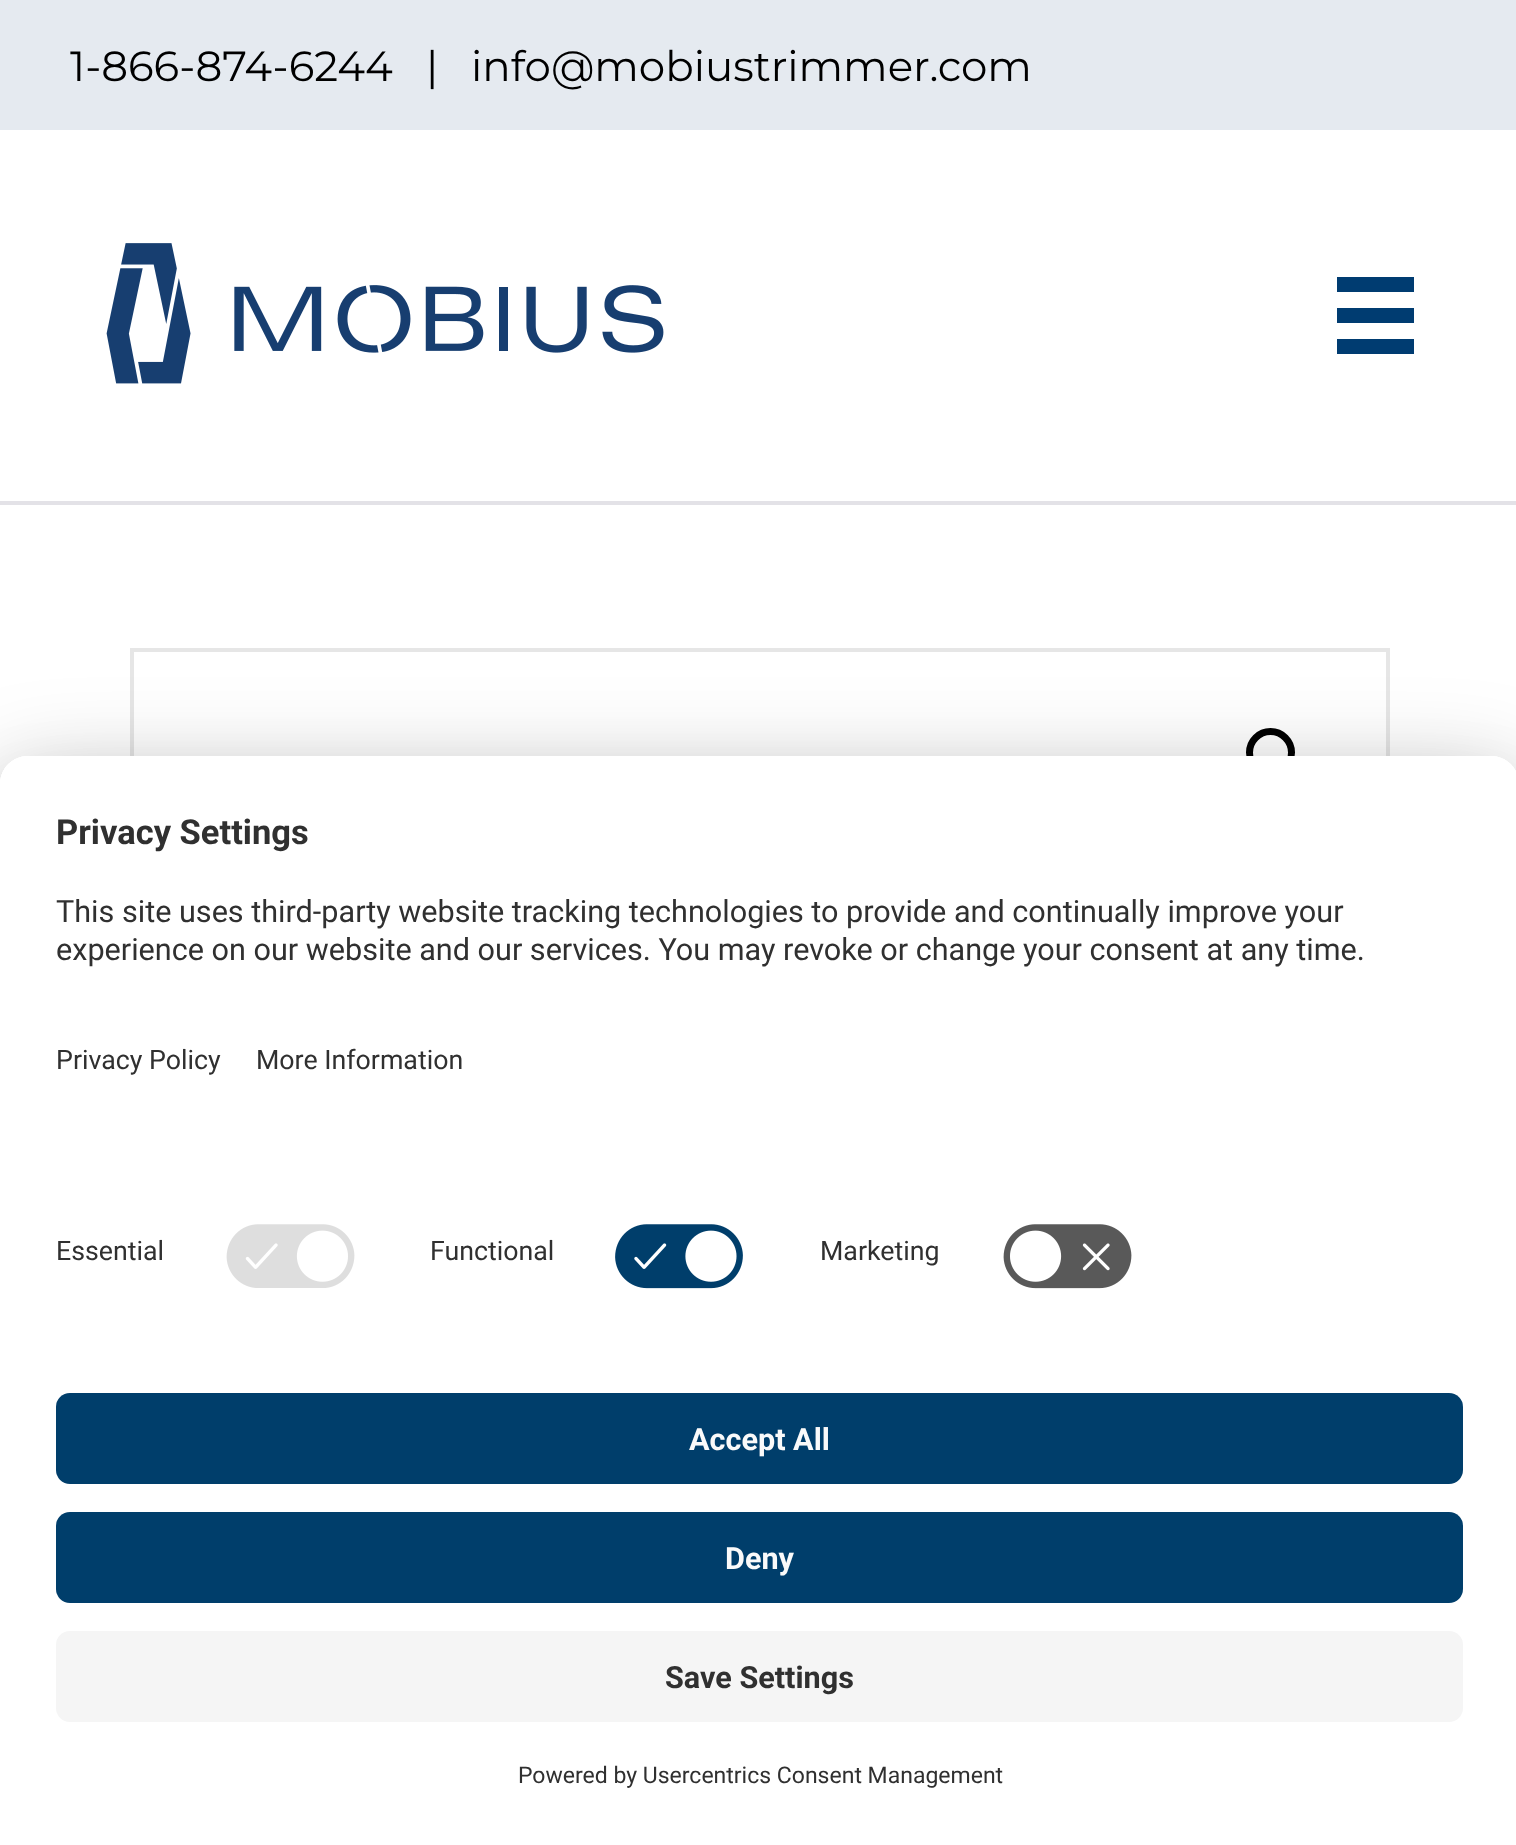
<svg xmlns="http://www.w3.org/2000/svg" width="1516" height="1845">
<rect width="100%" height="100%" fill="#fff"/>
<rect width="1516" height="130" fill="#e5eaf0"/>
<text x="70" y="81" style="font-family:Montserrat;font-size:42px;fill:#000">1-866-874-6244</text>
<text x="426" y="81" style="font-family:Montserrat;font-size:42px;fill:#000">|</text>
<text x="471" y="81" style="font-family:Montserrat;font-size:42px;fill:#000">info@mobiustrimmer.com</text>
<rect y="501" width="1516" height="4" fill="#e3e2e7"/>
<image x="106" y="243" width="558" height="141" href="media/1.png"/>
<rect x="1337" y="277" width="77" height="15" fill="#003c71"/>
<rect x="1337" y="308" width="77" height="15" fill="#003c71"/>
<rect x="1337" y="339" width="77" height="15" fill="#003c71"/>
<rect x="132" y="650" width="1256" height="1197" fill="none" stroke="#e6e6e6" stroke-width="4"/>
<circle cx="1270.5" cy="752.5" r="21" fill="none" stroke="#000" stroke-width="7"/>
<rect y="826" width="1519" height="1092" rx="28" fill="#0000004d" filter="blur(49px)"/>
<rect y="774" width="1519" height="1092" rx="28" fill="#00000038" filter="blur(45.5px)"/>
<path d="M28 756h1463c15.5 0 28 12.5 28 28v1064h-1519v-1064c0-15.5 12.5-28 28-28z" fill="#fff"/>
<path d="M28 756h1463c15.5 0 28 12.5 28 28v567h-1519v-567c0-15.5 12.5-28 28-28z" fill="#fff"/>
<path d="M28 756h1463c15.5 0 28 12.5 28 28v413h-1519v-413c0-15.5 12.5-28 28-28z" fill="#fff"/>
<text x="56" y="844" style="font-family:Roboto;font-size:34.5px;font-weight:bold;fill:#303030">Privacy Settings</text>
<text x="56" y="922" style="font-family:Roboto;font-size:30.6px;fill:#303030">This site uses third-party website tracking technologies to provide and continually improve your</text>
<text x="56" y="960" style="font-family:Roboto;font-size:30.6px;fill:#303030">experience on our website and our services. You may revoke or change your consent at any time.</text>
<text x="56" y="1069" style="font-family:Roboto;font-size:26.75px;fill:#303030">Privacy Policy</text>
<text x="256" y="1069" style="font-family:Roboto;font-size:26.75px;fill:#303030">More Information</text>
<text x="56" y="1260" style="font-family:Roboto;font-size:26.75px;fill:#303030">Essential</text>
<image x="226" y="1224" width="129" height="64" href="media/2.png"/>
<text x="430" y="1260" style="font-family:Roboto;font-size:26.75px;fill:#303030">Functional</text>
<image x="615" y="1224" width="128" height="65" href="media/3.png"/>
<text x="820" y="1260" style="font-family:Roboto;font-size:26.75px;fill:#303030">Marketing</text>
<image x="1003" y="1224" width="129" height="65" href="media/4.png"/>
<rect x="56" y="1393" width="1407" height="91" rx="14" fill="#003e6b"/>
<text x="689" y="1450" style="font-family:Roboto;font-size:30.6px;font-weight:bold;fill:#fafafa">Accept All</text>
<rect x="56" y="1512" width="1407" height="91" rx="14" fill="#003e6b"/>
<text x="725" y="1569" style="font-family:Roboto;font-size:30.6px;font-weight:bold;fill:#fafafa">Deny</text>
<rect x="56" y="1631" width="1407" height="91" rx="14" fill="#f5f5f5"/>
<text x="665" y="1688" style="font-family:Roboto;font-size:30.6px;font-weight:bold;fill:#303030">Save Settings</text>
<text x="518" y="1783" style="font-family:Roboto;font-size:23px;fill:#303030">Powered by Usercentrics Consent Management</text>
</svg>
